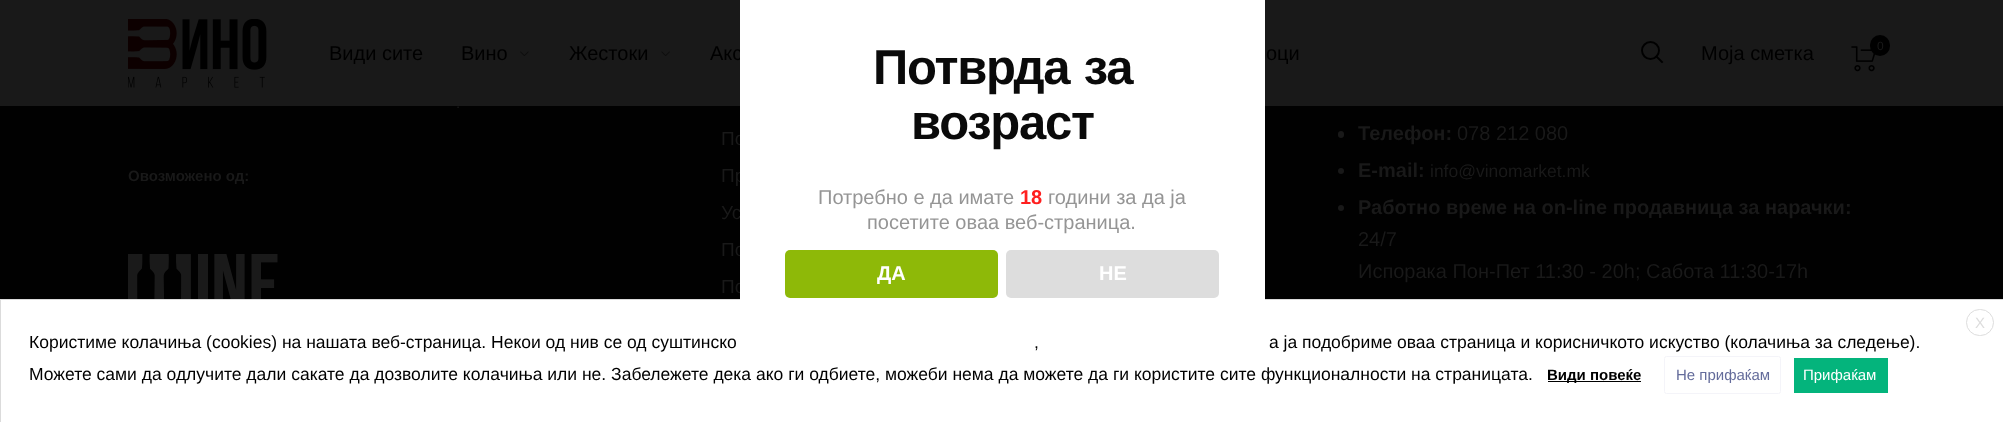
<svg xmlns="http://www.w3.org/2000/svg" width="2003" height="422">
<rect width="100%" height="100%" fill="#010101"/>
<rect width="2003" height="106" fill="#191919"/>
<image x="128" y="19" width="139" height="69" href="media/1.png"/>
<text x="329" y="60" style="font-family:Liberation Sans;font-size:20px;fill:#000">Види сите</text>
<text x="461" y="60" style="font-family:Liberation Sans;font-size:20px;fill:#000">Вино</text>
<image x="520" y="51" width="9" height="5" href="media/2.png"/>
<text x="569" y="60" style="font-family:Liberation Sans;font-size:20px;fill:#000">Жестоки</text>
<image x="661" y="51" width="9" height="5" href="media/3.png"/>
<text x="710" y="60" style="font-family:Liberation Sans;font-size:20px;fill:#000">Акс</text>
<text x="1266" y="60" style="font-family:Liberation Sans;font-size:20px;fill:#000">оци</text>
<path d="M1662 62l-5.5-5.5" fill="none" stroke="#000" stroke-width="1.9" stroke-linecap="square"/>
<circle cx="1650.5" cy="50.5" r="8.5" fill="none" stroke="#000" stroke-width="1.9"/>
<text x="1701" y="60" style="font-family:Liberation Sans;font-size:20px;fill:#000">Моја сметка</text>
<image x="1851" y="46" width="25" height="26" href="media/4.png"/>
<rect x="1870" y="35" width="20" height="21" rx="10" fill="#000"/>
<text x="1877" y="50" style="font-family:Liberation Sans;font-size:12px;fill:#191919">0</text>
<text x="721" y="145" style="font-family:Liberation Sans;font-size:19px;fill:#191919">По</text>
<text x="721" y="182" style="font-family:Liberation Sans;font-size:19px;fill:#191919">Пр</text>
<text x="721" y="219" style="font-family:Liberation Sans;font-size:19px;fill:#191919">Ус</text>
<text x="721" y="256" style="font-family:Liberation Sans;font-size:19px;fill:#191919">По</text>
<text x="721" y="293" style="font-family:Liberation Sans;font-size:19px;fill:#191919">По</text>
<rect x="0.5" y="299.5" width="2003" height="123" fill="#fff" stroke="#dbdbdb"/>
<rect x="740" width="525" height="300" fill="#fff"/>
<text x="873" y="84" word-spacing="2" style="font-family:Liberation Sans;font-size:49px;font-weight:bold;letter-spacing:-1.25px;fill:#0a0a0a">Потврда за</text>
<text x="911" y="139" style="font-family:Liberation Sans;font-size:49px;font-weight:bold;letter-spacing:-1.25px;fill:#0a0a0a">возраст</text>
<text x="818" y="204" style="font-family:Liberation Sans;font-size:20px;fill:#959595">Потребно е да имате</text>
<text x="1020" y="204" style="font-family:Liberation Sans;font-size:20px;font-weight:bold;fill:#ff1f1f">18</text>
<text x="1048" y="204" style="font-family:Liberation Sans;font-size:20px;fill:#959595">години за да ја</text>
<text x="867" y="229" style="font-family:Liberation Sans;font-size:20px;fill:#959595">посетите оваа веб-страница.</text>
<rect x="785" y="250" width="213" height="48" rx="5" fill="#8eb908"/>
<text x="877" y="280" style="font-family:Liberation Sans;font-size:20px;font-weight:bold;fill:#fff">ДА</text>
<rect x="1006" y="250" width="213" height="48" rx="5" fill="#ddd"/>
<text x="1099" y="280" style="font-family:Liberation Sans;font-size:20px;font-weight:bold;fill:#fff">НЕ</text>
<text x="456" y="108" style="font-family:Liberation Sans;font-size:15px;fill:#191919">.</text>
<text x="128" y="181" style="font-family:Liberation Sans;font-size:15px;font-weight:bold;fill:#191919">Овозможено од:</text>
<image x="128" y="254" width="150" height="45" href="media/5.png"/>
<rect x="1338" y="131" width="6" height="7" rx="3" fill="#191919"/>
<text x="1358" y="140" style="font-family:Liberation Sans;font-size:20px;font-weight:bold;fill:#191919">Телефон:</text>
<text x="1457" y="140" style="font-family:Liberation Sans;font-size:20px;fill:#191919">078 212 080</text>
<circle cx="1341" cy="171" r="3" fill="#191919"/>
<text x="1358" y="177" style="font-family:Liberation Sans;font-size:20px;font-weight:bold;fill:#191919">E-mail:</text>
<text x="1430" y="177" style="font-family:Liberation Sans;font-size:17.5px;fill:#191919">info@vinomarket.mk</text>
<circle cx="1341" cy="208" r="3" fill="#191919"/>
<text x="1358" y="214" style="font-family:Liberation Sans;font-size:20px;font-weight:bold;fill:#191919">Работно време на on-line продавница за нарачки:</text>
<text x="1358" y="246" style="font-family:Liberation Sans;font-size:20px;fill:#191919">24/7</text>
<text x="1358" y="278" style="font-family:Liberation Sans;font-size:20px;fill:#191919">Испорака Пон-Пет 11:30 - 20h; Сабота 11:30-17h</text>
<rect x="1966.5" y="309.5" width="27" height="26" rx="13" fill="none" stroke="#ddd"/>
<text x="1975" y="328" style="font-family:Liberation Sans;font-size:15px;fill:#ddd">X</text>
<text x="29" y="348" style="font-family:Liberation Sans;font-size:17.5px;fill:#000">Користиме колачиња (cookies) на нашата веб-страница. Некои од нив се од суштинско</text>
<text x="1034" y="348" style="font-family:Liberation Sans;font-size:17.5px;fill:#000">,</text>
<text x="1269" y="348" style="font-family:Liberation Sans;font-size:17.5px;fill:#000">а ја подобриме оваа страница и корисничкото искуство (колачиња за следење).</text>
<text x="29" y="380" style="font-family:Liberation Sans;font-size:17.5px;fill:#000">Можете сами да одлучите дали сакате да дозволите колачиња или не. Забележете дека ако ги одбиете, можеби нема да можете да ги користите сите функционалности на страницата.</text>
<rect x="1548" y="381" width="93" height="1" fill="#000"/>
<text x="1547" y="380" style="font-family:Liberation Sans;font-size:15px;font-weight:bold;fill:#000">Види повеќе</text>
<rect x="1664.5" y="356.5" width="116" height="37" rx="2" fill="none" stroke="#f4f4f9"/>
<text x="1676" y="380" style="font-family:Liberation Sans;font-size:15px;fill:#646c9b">Не прифаќам</text>
<rect x="1794" y="358" width="94" height="35" fill="#04b47c"/>
<text x="1803" y="380" style="font-family:Liberation Sans;font-size:15px;fill:#fff">Прифаќам</text>
</svg>
